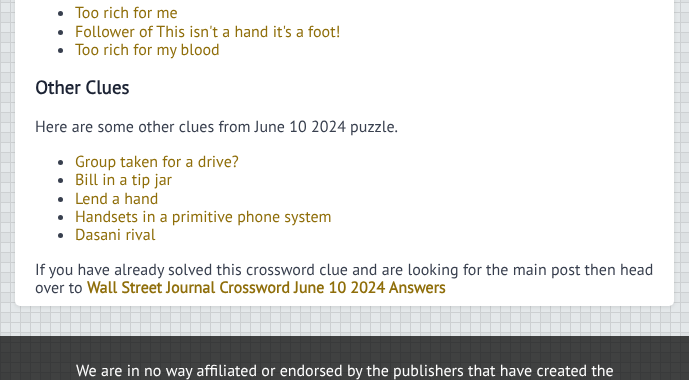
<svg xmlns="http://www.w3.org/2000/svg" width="689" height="380">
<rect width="100%" height="100%" fill="#fff"/>
<image x="0" y="0" width="689" height="380" href="media/1.png"/>
<rect x="15" y="-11" width="659" height="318" rx="5" fill="#0000001a" filter="blur(2px)"/>
<rect x="15" y="-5" width="659" height="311" rx="5" fill="#fff"/>
<circle cx="60.5" cy="13.5" r="2.5" fill="#383f4e"/>
<text x="75" y="18" style="font-family:PT Sans;font-size:16px;fill:#8f6e0a">Too rich for me</text>
<circle cx="60.5" cy="32.5" r="2.5" fill="#383f4e"/>
<text x="75" y="37" style="font-family:PT Sans;font-size:16px;fill:#8f6e0a">Follower of This isn't a hand it's a foot!</text>
<circle cx="60.5" cy="50.5" r="2.5" fill="#383f4e"/>
<text x="75" y="55" style="font-family:PT Sans;font-size:16px;fill:#8f6e0a">Too rich for my blood</text>
<text x="35" y="94" style="font-family:PT Sans;font-size:18.75px;font-weight:bold;fill:#1c2334">Other Clues</text>
<text x="35" y="132" style="font-family:PT Sans;font-size:16px;fill:#383f4e">Here are some other clues from June 10 2024 puzzle.</text>
<circle cx="60.5" cy="162.5" r="2.5" fill="#383f4e"/>
<text x="75" y="167" style="font-family:PT Sans;font-size:16px;fill:#8f6e0a">Group taken for a drive?</text>
<circle cx="60.5" cy="180.5" r="2.5" fill="#383f4e"/>
<text x="75" y="185" style="font-family:PT Sans;font-size:16px;fill:#8f6e0a">Bill in a tip jar</text>
<circle cx="60.5" cy="199.5" r="2.5" fill="#383f4e"/>
<text x="75" y="204" style="font-family:PT Sans;font-size:16px;fill:#8f6e0a">Lend a hand</text>
<circle cx="60.5" cy="217.5" r="2.5" fill="#383f4e"/>
<text x="75" y="222" style="font-family:PT Sans;font-size:16px;fill:#8f6e0a">Handsets in a primitive phone system</text>
<circle cx="60.5" cy="235.5" r="2.5" fill="#383f4e"/>
<text x="75" y="240" style="font-family:PT Sans;font-size:16px;fill:#8f6e0a">Dasani rival</text>
<text x="35" y="275" style="font-family:PT Sans;font-size:16px;fill:#383f4e">If you have already solved this crossword clue and are looking for the main post then head</text>
<text x="35" y="293" style="font-family:PT Sans;font-size:16px;fill:#383f4e">over to</text>
<text x="87" y="293" style="font-family:PT Sans;font-size:16px;font-weight:bold;fill:#8f6e0a">Wall Street Journal Crossword June 10 2024 Answers</text>
<rect y="336" width="689" height="44" fill="#000000b8"/>
<text x="76" y="376" style="font-family:PT Sans;font-size:16px;fill:#fff">We are in no way affiliated or endorsed by the publishers that have created the</text>
</svg>
